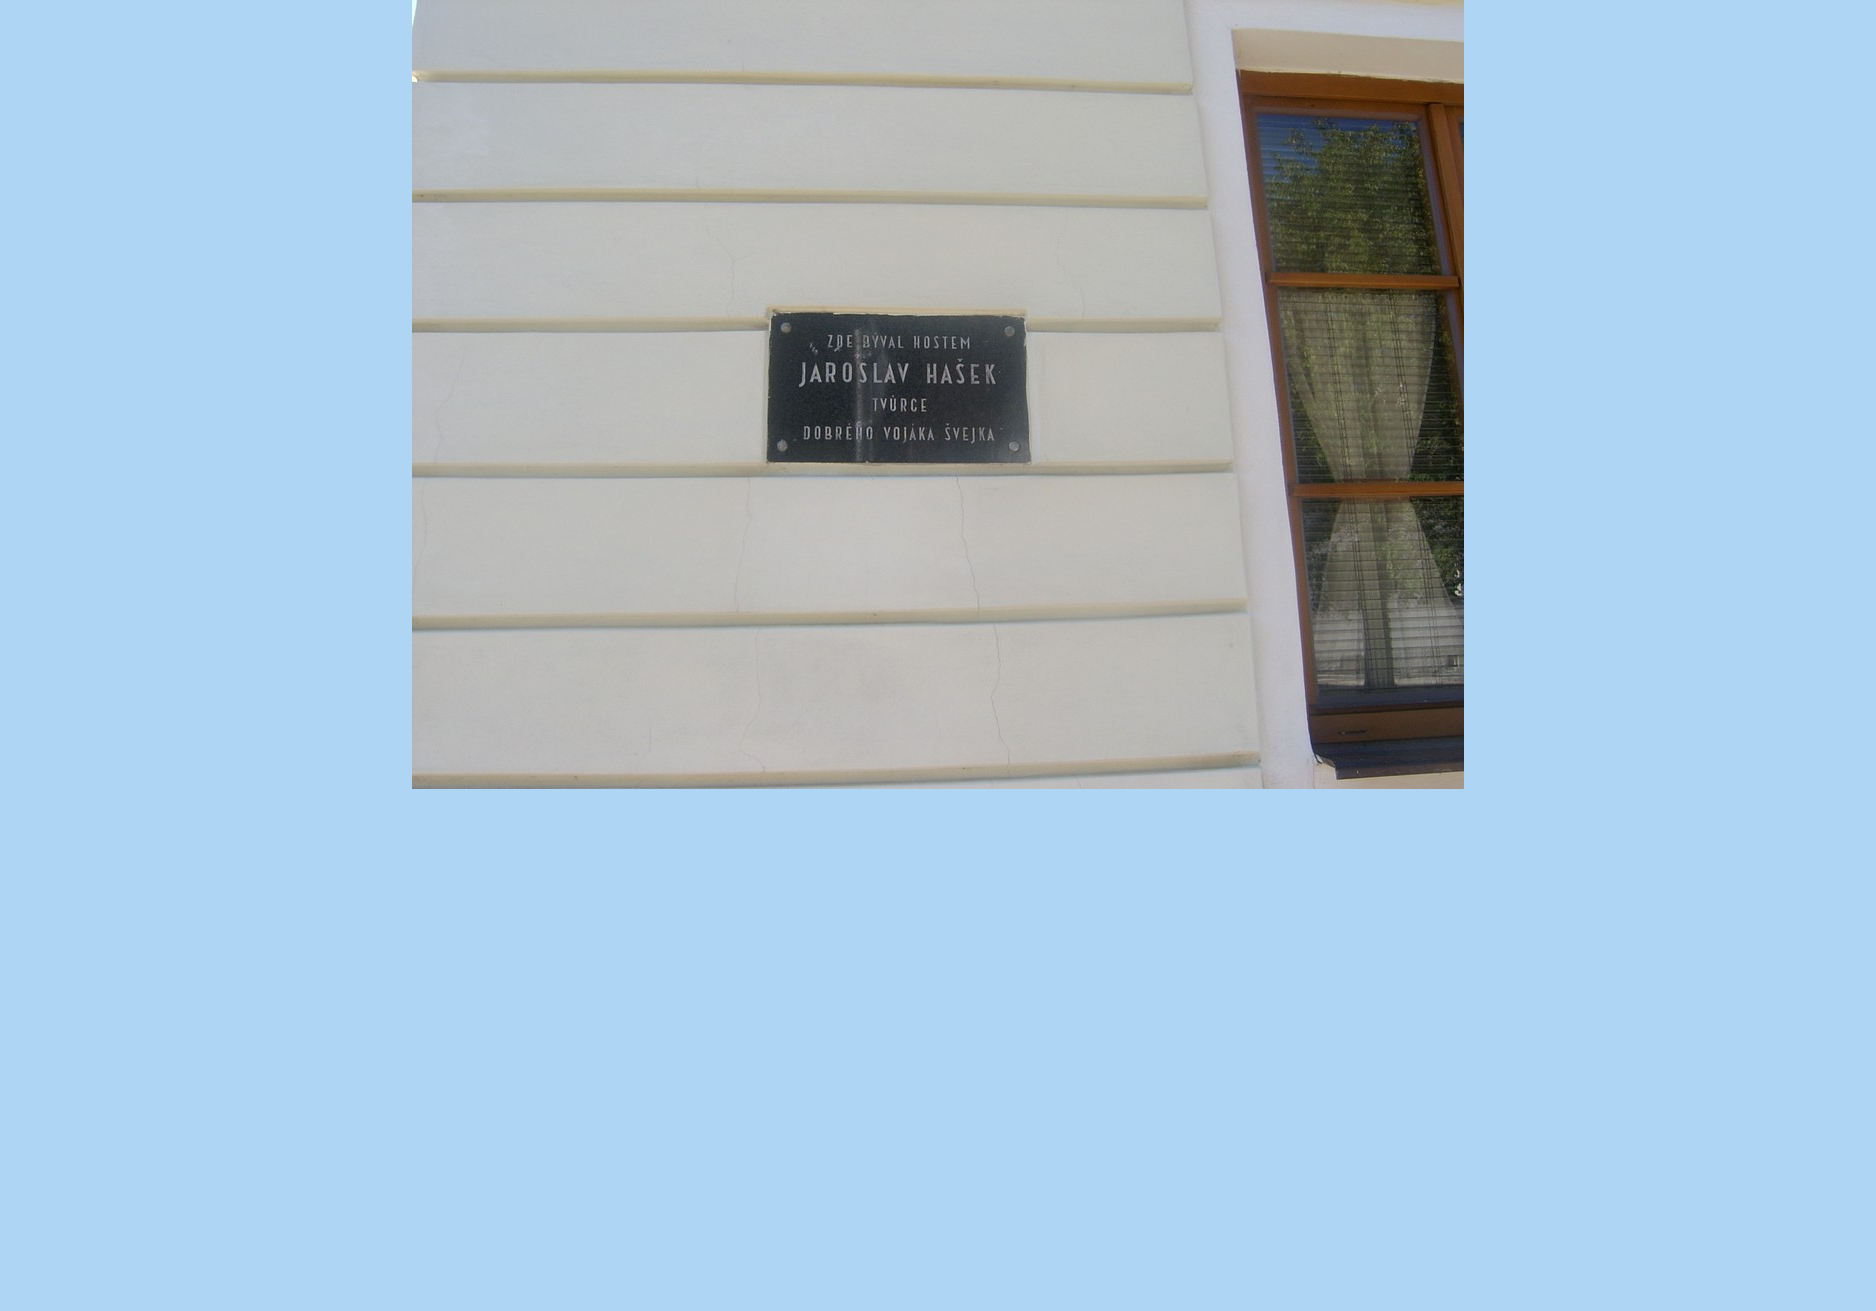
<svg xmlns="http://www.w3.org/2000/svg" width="1876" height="1311">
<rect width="100%" height="100%" fill="#afd5f4"/>
<image x="412" y="0" width="1052" height="789" href="media/1.png"/>
</svg>
